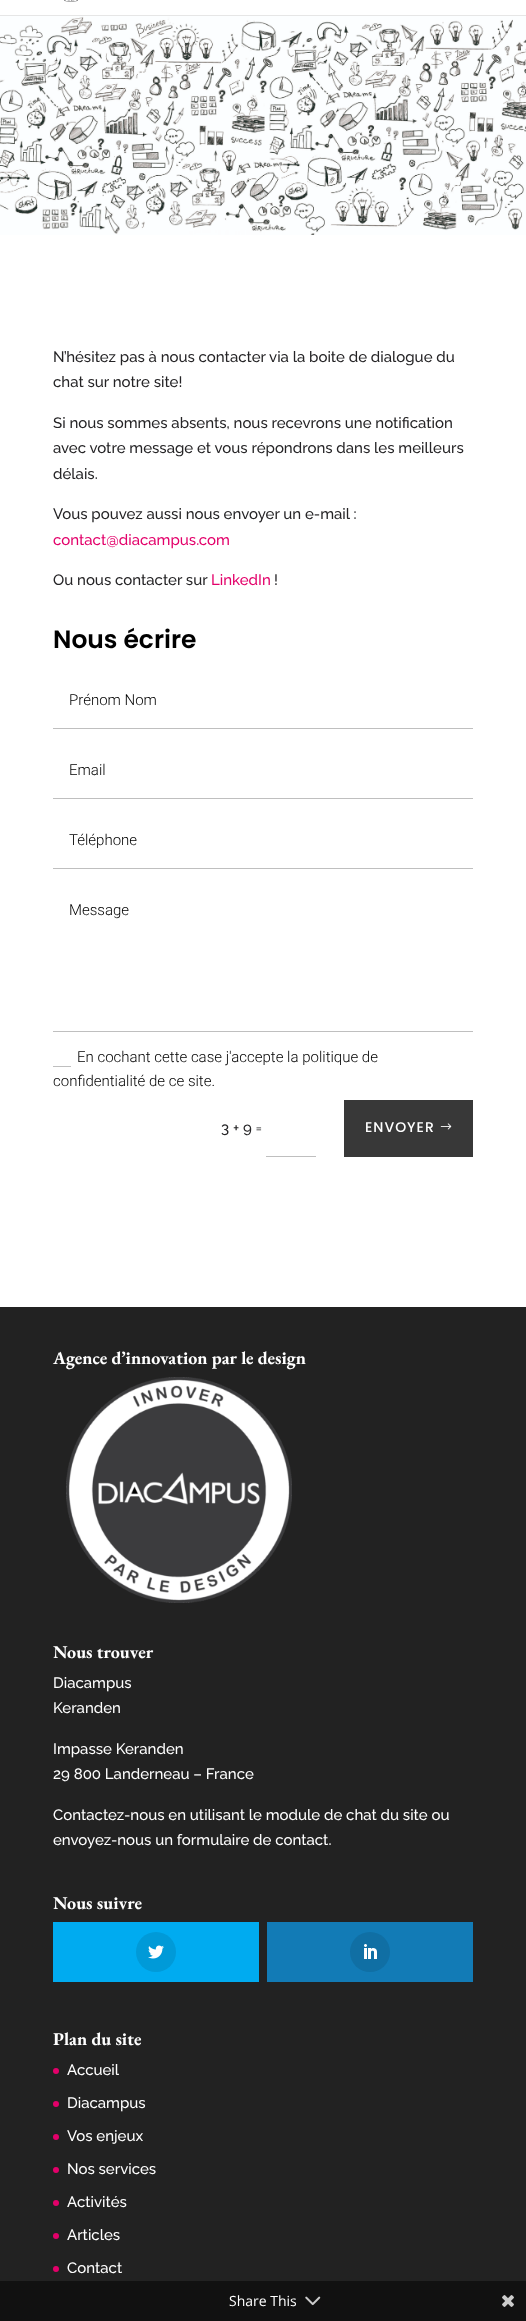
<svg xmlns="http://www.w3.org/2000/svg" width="526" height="2321">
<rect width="100%" height="100%" fill="#222"/>
<rect y="15" width="526" height="1" fill="#e6e6e6"/>
<rect width="526" height="15" fill="#fff"/>
<image x="64" y="0" width="14" height="2" href="media/1.png"/>
<image x="0" y="16" width="526" height="219" href="media/2.png"/>
<rect y="235" width="526" height="1072" fill="#fff"/>
<text x="53" y="362" style="font-family:Raleway;font-size:15px;font-weight:500;fill:#252426">N’hésitez pas à nous contacter via la boite de dialogue du</text>
<text x="53" y="387" style="font-family:Raleway;font-size:15px;font-weight:500;fill:#252426">chat sur notre site!</text>
<text x="53" y="428" style="font-family:Raleway;font-size:15px;font-weight:500;fill:#252426">Si nous sommes absents, nous recevrons une notification</text>
<text x="53" y="453" style="font-family:Raleway;font-size:15px;font-weight:500;fill:#252426">avec votre message et vous répondrons dans les meilleurs</text>
<text x="53" y="479" style="font-family:Raleway;font-size:15px;font-weight:500;fill:#252426">délais.</text>
<text x="53" y="519" style="font-family:Raleway;font-size:15px;font-weight:500;fill:#252426">Vous pouvez aussi nous envoyer un e-mail :</text>
<text x="53" y="545" style="font-family:Raleway;font-size:15px;font-weight:500;fill:#e3006a">contact@diacampus.com</text>
<text x="53" y="585" style="font-family:Raleway;font-size:15px;font-weight:500;fill:#252426">Ou nous contacter sur</text>
<text x="211" y="585" style="font-family:Raleway;font-size:15px;font-weight:500;fill:#e3006a">LinkedIn</text>
<text x="274" y="585" style="font-family:Raleway;font-size:15px;font-weight:500;fill:#252426">!</text>
<text x="53" y="648" style="font-family:Poppins;font-size:25px;font-weight:600;fill:#000">Nous écrire</text>
<rect x="53" y="728" width="420" height="1" fill="#bfbfbf"/>
<text x="69" y="705" style="font-family:Roboto;font-size:15px;font-weight:300;fill:#000">Prénom Nom</text>
<rect x="53" y="798" width="420" height="1" fill="#bfbfbf"/>
<text x="69" y="775" style="font-family:Roboto;font-size:15px;font-weight:300;fill:#000">Email</text>
<rect x="53" y="868" width="420" height="1" fill="#bfbfbf"/>
<text x="69" y="845" style="font-family:Roboto;font-size:15px;font-weight:300;fill:#000">Téléphone</text>
<rect x="53" y="1031" width="420" height="1" fill="#bfbfbf"/>
<text x="69" y="915" style="font-family:Roboto;font-size:15px;font-weight:300;fill:#000">Message</text>
<text x="77" y="1062" style="font-family:Roboto;font-size:15px;font-weight:300;fill:#000">En cochant cette case j'accepte la politique de</text>
<rect x="53" y="1066" width="18" height="1" fill="#bfbfbf"/>
<text x="53" y="1086" style="font-family:Roboto;font-size:15px;font-weight:300;fill:#000">confidentialité de ce site.</text>
<text x="221" y="1133" style="font-family:Raleway;font-size:15px;font-weight:500;fill:#252426">3 + 9 =</text>
<rect x="266" y="1156" width="50" height="1" fill="#bfbfbf"/>
<rect x="344" y="1100" width="129" height="57" fill="#383838"/>
<text x="365" y="1132" style="font-family:Poppins;font-size:14px;font-weight:500;letter-spacing:1px;fill:#fff">ENVOYER</text>
<image x="440" y="1123" width="12" height="7" href="media/3.png"/>
<text x="53" y="1364" style="font-family:EB Garamond;font-size:18px;font-weight:bold;fill:#fff">Agence d’innovation par le design</text>
<image x="66" y="1377" width="226" height="226" href="media/4.png"/>
<text x="53" y="1658" style="font-family:EB Garamond;font-size:18px;font-weight:bold;fill:#fff">Nous trouver</text>
<text x="53" y="1688" style="font-family:Raleway;font-size:15px;font-weight:500;fill:#fff">Diacampus</text>
<text x="53" y="1713" style="font-family:Raleway;font-size:15px;font-weight:500;fill:#fff">Keranden</text>
<text x="53" y="1754" style="font-family:Raleway;font-size:15px;font-weight:500;fill:#fff">Impasse Keranden</text>
<text x="53" y="1779" style="font-family:Raleway;font-size:15px;font-weight:500;fill:#fff">29 800 Landerneau – France</text>
<text x="53" y="1820" style="font-family:Raleway;font-size:15px;font-weight:500;fill:#fff">Contactez-nous en utilisant le module de chat du site ou</text>
<text x="53" y="1845" style="font-family:Raleway;font-size:15px;font-weight:500;fill:#fff">envoyez-nous un formulaire de contact.</text>
<text x="53" y="1909" style="font-family:EB Garamond;font-size:18px;font-weight:bold;fill:#fff">Nous suivre</text>
<rect x="53" y="1922" width="206" height="60" fill="#00abf0"/>
<circle cx="156" cy="1952" r="20" fill="#009ad8"/>
<image x="148" y="1945" width="16" height="14" href="media/5.png"/>
<rect x="267" y="1922" width="206" height="60" fill="#127bb6"/>
<circle cx="370" cy="1952" r="20" fill="#106fa4"/>
<image x="364" y="1944" width="13" height="15" href="media/6.png"/>
<text x="53" y="2045" style="font-family:EB Garamond;font-size:18px;font-weight:bold;fill:#fff">Plan du site</text>
<circle cx="56" cy="2071" r="3" fill="#e3006a"/>
<text x="67" y="2075" style="font-family:Raleway;font-size:15px;font-weight:500;fill:#fff">Accueil</text>
<circle cx="56" cy="2104" r="3" fill="#e3006a"/>
<text x="67" y="2108" style="font-family:Raleway;font-size:15px;font-weight:500;fill:#fff">Diacampus</text>
<circle cx="56" cy="2137" r="3" fill="#e3006a"/>
<text x="67" y="2141" style="font-family:Raleway;font-size:15px;font-weight:500;fill:#fff">Vos enjeux</text>
<circle cx="56" cy="2170" r="3" fill="#e3006a"/>
<text x="67" y="2174" style="font-family:Raleway;font-size:15px;font-weight:500;fill:#fff">Nos services</text>
<circle cx="56" cy="2203" r="3" fill="#e3006a"/>
<text x="67" y="2207" style="font-family:Raleway;font-size:15px;font-weight:500;fill:#fff">Activités</text>
<circle cx="56" cy="2236" r="3" fill="#e3006a"/>
<text x="67" y="2240" style="font-family:Raleway;font-size:15px;font-weight:500;fill:#fff">Articles</text>
<circle cx="56" cy="2269" r="3" fill="#e3006a"/>
<text x="67" y="2273" style="font-family:Raleway;font-size:15px;font-weight:500;fill:#fff">Contact</text>
<rect y="2281" width="526" height="40" fill="#111"/>
<text x="229" y="2306" style="font-family:Open Sans;font-size:14px;fill:#fff">Share This</text>
<image x="305" y="2296" width="16" height="10" href="media/7.png"/>
<image x="502" y="2295" width="12" height="12" href="media/8.png"/>
</svg>
